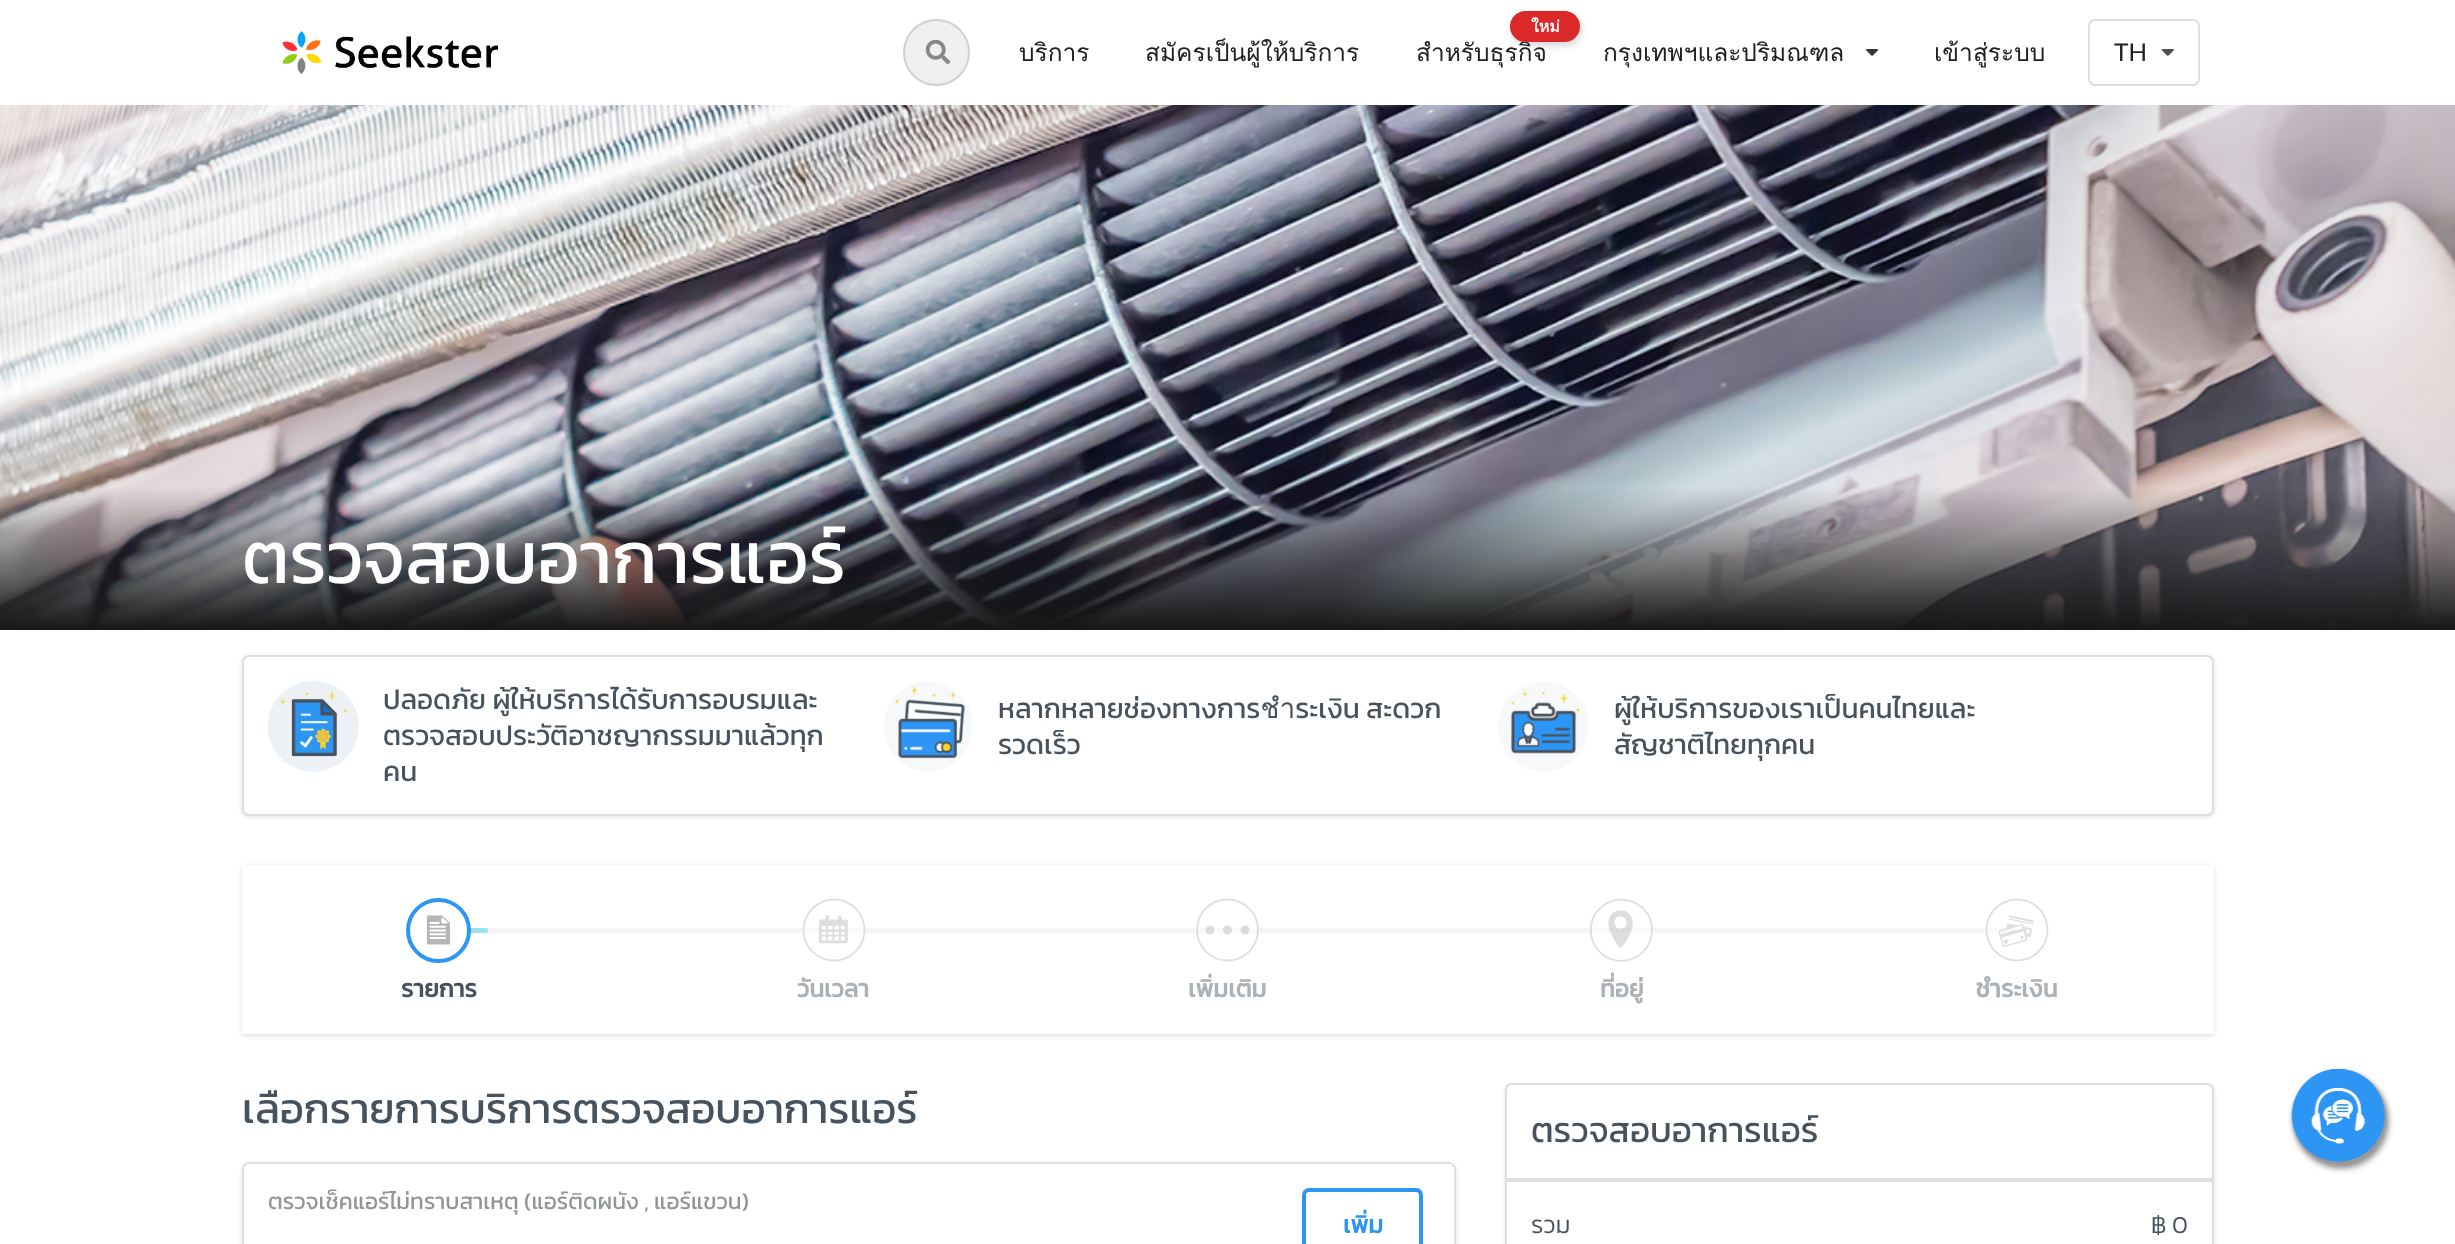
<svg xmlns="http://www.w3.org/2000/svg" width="2455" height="1244">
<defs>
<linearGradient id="g1" gradientUnits="userSpaceOnUse" x1="488" y1="930" x2="439" y2="930"><stop offset="0" stop-color="#98e6e9"/><stop offset="1" stop-color="#a1cffa"/></linearGradient>
</defs>
<rect width="100%" height="100%" fill="#fff"/>
<image x="282" y="31" width="216" height="43" href="media/1.png"/>
<circle cx="936.5" cy="52.5" r="33.5" fill="#efefef"/>
<circle cx="936.5" cy="52.5" r="32.5" fill="none" stroke="#22242626" stroke-width="2"/>
<image x="925" y="39" width="26" height="26" href="media/2.png"/>
<text x="1019" y="61" style="font-family:Loma;font-size:24.5px;fill:#212121">บริการ</text>
<text x="1145" y="61" style="font-family:Loma;font-size:24.5px;fill:#212121">สมัครเป็นผู้ให้บริการ</text>
<rect x="1512" y="14" width="70" height="32" rx="16" fill="#b6b6b680" filter="blur(3.5px)"/>
<text x="1416" y="61" style="font-family:Loma;font-size:24.5px;fill:#212121">สำหรับธุรกิจ</text>
<rect x="1510" y="11" width="70" height="31" rx="15.5" fill="#db2828"/>
<text x="1531" y="32" style="font-family:Loma;font-size:16px;font-weight:bold;fill:#fff">ใหม่</text>
<text x="1603" y="61" style="font-family:Loma;font-size:24.5px;fill:#212121">กรุงเทพฯและปริมณฑล</text>
<image x="1866" y="49" width="13" height="7" href="media/3.png"/>
<text x="1934" y="61" style="font-family:Loma;font-size:24.5px;fill:#212121">เข้าสู่ระบบ</text>
<rect x="2089" y="20" width="110" height="65" rx="6" fill="none" stroke="#dedede" stroke-width="2"/>
<text x="2114" y="61" style="font-family:Lato;font-size:24.5px;fill:#212121">TH</text>
<image x="2161" y="49" width="13" height="7" href="media/4.png"/>
<image x="0" y="105" width="2455" height="525" href="media/5.png"/>
<text x="242" y="583" style="font-family:Kanit;font-size:73.5px;fill:#fff">ตรวจสอบอาการแอร์</text>
<rect x="242" y="656" width="1972" height="161" rx="7" fill="#22242626" filter="blur(2px)"/>
<rect x="242" y="655" width="1972" height="161" rx="7" fill="#fff"/>
<rect x="243" y="656" width="1970" height="159" rx="6" fill="none" stroke="#22242626" stroke-width="2"/>
<image x="267" y="680" width="92" height="92" href="media/6.png"/>
<text x="383" y="709" style="font-family:Kanit;font-size:28px;fill:#47525d">ปลอดภัย ผู้ให้บริการได้รับการอบรมและ</text>
<text x="383" y="745" style="font-family:Kanit;font-size:28px;fill:#47525d">ตรวจสอบประวัติอาชญากรรมมาแล้วทุก</text>
<text x="383" y="781" style="font-family:Kanit;font-size:28px;fill:#47525d">คน</text>
<image x="884" y="681" width="89" height="91" href="media/7.png"/>
<text x="998" y="718" style="font-family:Kanit;font-size:28px;fill:#47525d">หลากหลายช่องทางการชำระเงิน สะดวก</text>
<text x="998" y="754" style="font-family:Kanit;font-size:28px;fill:#47525d">รวดเร็ว</text>
<image x="1498" y="681" width="91" height="91" href="media/8.png"/>
<text x="1614" y="718" style="font-family:Kanit;font-size:28px;fill:#47525d">ผู้ให้บริการของเราเป็นคนไทยและ</text>
<text x="1614" y="754" style="font-family:Kanit;font-size:28px;fill:#47525d">สัญชาติไทยทุกคน</text>
<rect x="242" y="866" width="1972" height="170" fill="#22242626" filter="blur(2px)"/>
<rect x="242" y="865" width="1972" height="169" fill="#fff"/>
<rect x="439" y="928" width="1577" height="5" rx="2.5" fill="#f4f4f4"/>
<rect x="1589" y="928" width="65" height="5" fill="#f9f9f9"/>
<rect x="1195" y="928" width="65" height="5" fill="#f9f9f9"/>
<rect x="802" y="928" width="64" height="5" fill="#f9f9f9"/>
<rect x="439" y="928" width="49" height="5" rx="2.5" fill="url(#g1)"/>
<circle cx="438.5" cy="930.5" r="30.5" fill="#fff" stroke="#2d95f4" stroke-width="4"/>
<image x="426" y="915" width="24" height="30" href="media/9.png"/>
<text x="401" y="997" style="font-family:Kanit;font-size:24.5px;font-weight:bold;fill:#47525d">รายการ</text>
<image x="802" y="898" width="64" height="64" href="media/10.png"/>
<text x="797" y="997" style="font-family:Kanit;font-size:24.5px;font-weight:bold;fill:#acb1b6">วันเวลา</text>
<circle cx="1227.5" cy="930" r="30.5" fill="none" stroke="#b6b6b673" stroke-width="1.8"/>
<circle cx="1210" cy="930" r="4.5" fill="#b6b6b673"/>
<circle cx="1227.5" cy="930" r="4.5" fill="#b6b6b673"/>
<circle cx="1245" cy="930" r="4.5" fill="#b6b6b673"/>
<text x="1188" y="997" style="font-family:Kanit;font-size:24.5px;font-weight:bold;fill:#acb1b6">เพิ่มเติม</text>
<image x="1590" y="898" width="63" height="64" href="media/11.png"/>
<text x="1600" y="997" style="font-family:Kanit;font-size:24.5px;font-weight:bold;fill:#acb1b6">ที่อยู่</text>
<rect x="1985" y="928" width="31" height="5" fill="#ffffff73"/>
<image x="1985" y="898" width="64" height="64" href="media/12.png"/>
<text x="1976" y="997" style="font-family:Kanit;font-size:24.5px;font-weight:bold;fill:#acb1b6">ชำระเงิน</text>
<text x="242" y="1123" style="font-family:Kanit;font-size:42px;fill:#47525d">เลือกรายการบริการตรวจสอบอาการแอร์</text>
<rect x="242" y="1164" width="1214" height="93" rx="7" fill="#22242626" filter="blur(2px)"/>
<rect x="243" y="1163" width="1212" height="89" rx="6" fill="#fff" stroke="#dedede" stroke-width="2"/>
<text x="268" y="1209" style="font-family:Kanit;font-size:22.75px;fill:#929598">ตรวจเช็คแอร์ไม่ทราบสาเหตุ (แอร์ติดผนัง , แอร์แขวน)</text>
<rect x="1304" y="1190" width="117" height="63" rx="5" fill="none" stroke="#2d95f4" stroke-width="4"/>
<text x="1343" y="1233" style="font-family:Kanit;font-size:24.5px;font-weight:bold;fill:#2d95f4">เพิ่ม</text>
<rect x="1505" y="1085" width="709" height="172" rx="7" fill="#22242626" filter="blur(2px)"/>
<rect x="1505" y="1083" width="709" height="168" rx="7" fill="#fff"/>
<rect x="1506" y="1084" width="707" height="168" rx="6" fill="none" stroke="#22242626" stroke-width="2"/>
<text x="1531" y="1142" style="font-family:Kanit;font-size:35px;fill:#47525d">ตรวจสอบอาการแอร์</text>
<rect x="1507" y="1178" width="705" height="4" fill="#dedede"/>
<text x="1531" y="1233" style="font-family:Kanit;font-size:24.5px;font-weight:300;fill:#47525d">รวม</text>
<text x="2151" y="1233" style="font-family:Kanit;font-size:24.5px;font-weight:300;fill:#47525d">฿ 0</text>
<image x="2288" y="1067" width="106" height="107" href="media/13.png"/>
</svg>
